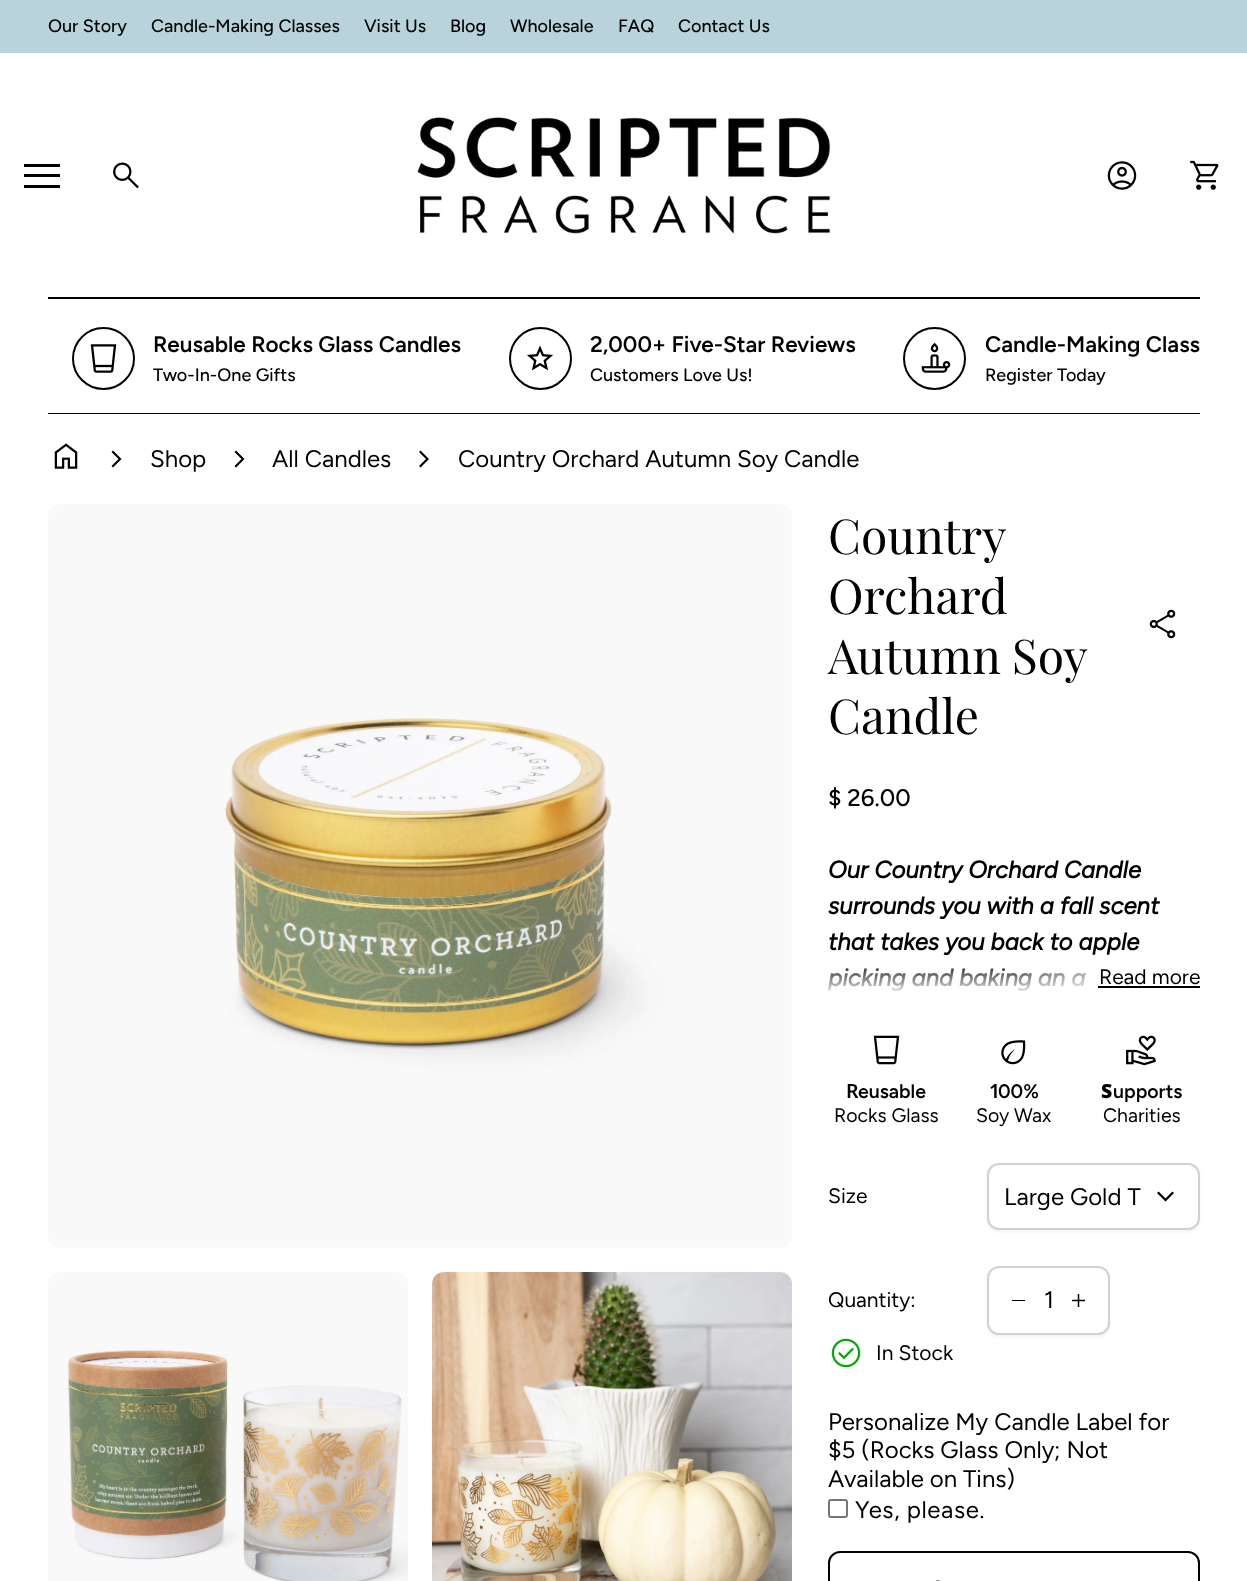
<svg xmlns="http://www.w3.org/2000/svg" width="1247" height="1581">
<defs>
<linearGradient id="g1" gradientUnits="userSpaceOnUse" x1="1200" y1="980" x2="828" y2="980"><stop offset="0.1" stop-color="#fff"/><stop offset="0.5" stop-color="#fff" stop-opacity="0"/></linearGradient>
<linearGradient id="g2" gradientUnits="userSpaceOnUse" x1="1014" y1="996" x2="1014" y2="960"><stop offset="0" stop-color="#fff"/><stop offset="1" stop-color="#fff" stop-opacity="0"/></linearGradient>
</defs>
<rect width="100%" height="100%" fill="#fff"/>
<rect width="1247" height="53" fill="#b8d3dc"/>
<text x="48" y="32" style="font-family:Figtree;font-size:18px;font-weight:500;fill:#000">Our Story</text>
<text x="151" y="32" style="font-family:Figtree;font-size:18px;font-weight:500;fill:#000">Candle-Making Classes</text>
<text x="364" y="32" style="font-family:Figtree;font-size:18px;font-weight:500;fill:#000">Visit Us</text>
<text x="450" y="32" style="font-family:Figtree;font-size:18px;font-weight:500;fill:#000">Blog</text>
<text x="510" y="32" style="font-family:Figtree;font-size:18px;font-weight:500;fill:#000">Wholesale</text>
<text x="618" y="32" style="font-family:Figtree;font-size:18px;font-weight:500;fill:#000">FAQ</text>
<text x="678" y="32" style="font-family:Figtree;font-size:18px;font-weight:500;fill:#000">Contact Us</text>
<rect x="24" y="164" width="36" height="3" fill="#000"/>
<rect x="24" y="174" width="36" height="3" fill="#000"/>
<rect x="24" y="185" width="36" height="3" fill="#000"/>
<image x="113" y="162" width="26" height="27" href="media/1.png"/>
<image x="417" y="117" width="414" height="117" href="media/2.png"/>
<image x="1107" y="161" width="30" height="29" href="media/3.png"/>
<image x="1190" y="160" width="29" height="30" href="media/4.png"/>
<rect x="48" y="297" width="1152" height="2" fill="#000"/>
<circle cx="103.5" cy="358.5" r="30.5" fill="none" stroke="#000" stroke-width="2"/>
<image x="90" y="344" width="27" height="29" href="media/5.png"/>
<text x="153" y="352" style="font-family:Figtree;font-size:22.5px;font-weight:600;fill:#000">Reusable Rocks Glass Candles</text>
<text x="153" y="381" style="font-family:Figtree;font-size:18px;font-weight:500;fill:#000">Two-In-One Gifts</text>
<circle cx="540.5" cy="358.5" r="30.5" fill="none" stroke="#000" stroke-width="2"/>
<image x="527" y="345" width="26" height="26" href="media/6.png"/>
<text x="590" y="352" style="font-family:Figtree;font-size:22.5px;font-weight:600;fill:#000">2,000+ Five-Star Reviews</text>
<text x="590" y="381" style="font-family:Figtree;font-size:18px;font-weight:500;fill:#000">Customers Love Us!</text>
<circle cx="934.5" cy="358.5" r="30.5" fill="none" stroke="#000" stroke-width="2"/>
<image x="921" y="342" width="30" height="31" href="media/7.png"/>
<text x="985" y="352" style="font-family:Figtree;font-size:22.5px;font-weight:600;fill:#000">Candle-Making Class</text>
<text x="985" y="381" style="font-family:Figtree;font-size:18px;font-weight:500;fill:#000">Register Today</text>
<rect x="48" y="413" width="1152" height="1" fill="#000"/>
<image x="54" y="443" width="24" height="26" href="media/8.png"/>
<path d="M118.5 459l-7-7l1.5-1.5l8.5 8.5l-8.5 8.5l-1.5-1.5z" fill="#000"/>
<text x="150" y="467" style="font-family:Figtree;font-size:24px;fill:#000">Shop</text>
<path d="M241.5 459l-7-7l1.5-1.5l8.5 8.5l-8.5 8.5l-1.5-1.5z" fill="#000"/>
<text x="272" y="467" style="font-family:Figtree;font-size:24px;fill:#000">All Candles</text>
<path d="M426 459l-7-7l1.5-1.5l8.5 8.5l-8.5 8.5l-1.5-1.5z" fill="#000"/>
<text x="458" y="467" style="font-family:Figtree;font-size:24px;fill:#000">Country Orchard Autumn Soy Candle</text>
<image x="48" y="504" width="744" height="744" href="media/9.png"/>
<image x="48" y="1272" width="360" height="309" href="media/10.png"/>
<image x="432" y="1272" width="360" height="309" href="media/11.png"/>
<text x="828" y="554" style="font-family:Playfair Display;font-size:48px;fill:#000">Country</text>
<text x="828" y="614" style="font-family:Playfair Display;font-size:48px;fill:#000">Orchard</text>
<text x="828" y="674" word-spacing="-1" style="font-family:Playfair Display;font-size:48px;fill:#000">Autumn Soy</text>
<text x="828" y="734" style="font-family:Playfair Display;font-size:48px;fill:#000">Candle</text>
<image x="1149" y="609" width="27" height="30" href="media/12.png"/>
<text x="828" y="806" style="font-family:Figtree;font-size:24px;font-weight:500;fill:#000">$ 26.00</text>
<text x="828" y="878" style="font-family:Figtree;font-size:24px;font-weight:bold;font-style:italic;fill:#000">Our Country Orchard Candle</text>
<text x="828" y="914" style="font-family:Figtree;font-size:24px;font-weight:bold;font-style:italic;fill:#000">surrounds you with a fall scent</text>
<text x="828" y="950" style="font-family:Figtree;font-size:24px;font-weight:bold;font-style:italic;fill:#000">that takes you back to apple</text>
<text x="828" y="986" style="font-family:Figtree;font-size:24px;font-weight:bold;font-style:italic;fill:#000">picking and baking an a</text>
<rect x="1018" y="973" width="67" height="18" fill="url(#g1)"/>
<rect x="828" y="968" width="257" height="24" fill="url(#g2)"/>
<text x="1099" y="984" style="font-family:Figtree;font-size:21px;fill:#000">Read more</text>
<rect x="1098" y="986" width="102" height="2" fill="#000"/>
<image x="873" y="1035" width="27" height="30" href="media/13.png"/>
<text x="846" y="1098" style="font-family:Noto Sans;font-size:19.5px;font-weight:600;fill:#000">R</text>
<text x="858" y="1098" style="font-family:Figtree;font-size:19.5px;font-weight:600;fill:#000">eusable</text>
<text x="834" y="1122" style="font-family:Figtree;font-size:19.5px;fill:#000">Rocks Glass</text>
<image x="1001" y="1040" width="25" height="25" href="media/14.png"/>
<text x="989" y="1098" style="font-family:Noto Sans;font-size:19.5px;font-weight:600;fill:#000">1</text>
<text x="998" y="1098" style="font-family:Figtree;font-size:19.5px;font-weight:600;fill:#000">00%</text>
<text x="976" y="1122" style="font-family:Figtree;font-size:19.5px;fill:#000">Soy Wax</text>
<image x="1126" y="1035" width="30" height="31" href="media/15.png"/>
<text x="1101" y="1098" style="font-family:Noto Sans;font-size:19.5px;font-weight:900;fill:#000">S</text>
<text x="1113" y="1098" style="font-family:Figtree;font-size:19.5px;font-weight:600;fill:#000">upports</text>
<text x="1103" y="1122" style="font-family:Figtree;font-size:19.5px;fill:#000">Charities</text>
<text x="828" y="1203" style="font-family:Figtree;font-size:21px;fill:#000">Size</text>
<rect x="987" y="1164" width="213" height="68" rx="12" fill="#1018280d" filter="blur(1.5px)"/>
<rect x="988" y="1164" width="211" height="65" rx="11" fill="#fff" stroke="#d1d1d1" stroke-width="2"/>
<text x="1004" y="1205" style="font-family:Figtree;font-size:24px;fill:#000">Large Gold T</text>
<image x="1157" y="1191" width="17" height="11" href="media/16.png"/>
<text x="828" y="1307" style="font-family:Figtree;font-size:21px;fill:#000">Quantity:</text>
<rect x="987" y="1268" width="123" height="69" rx="12" fill="#1018280d" filter="blur(1.5px)"/>
<rect x="988" y="1267" width="121" height="67" rx="11" fill="#fff" stroke="#d1d1d1" stroke-width="2"/>
<rect x="1012" y="1300" width="13" height="1" fill="#000"/>
<text x="1044" y="1308" style="font-family:Figtree;font-size:24px;fill:#000">1</text>
<image x="1072" y="1294" width="13" height="13" href="media/17.png"/>
<image x="831" y="1338" width="30" height="30" href="media/18.png"/>
<text x="876" y="1360" style="font-family:Figtree;font-size:21px;fill:#000">In Stock</text>
<text x="828" y="1430" style="font-family:Figtree;font-size:24px;fill:#000">Personalize My Candle Label for</text>
<text x="828" y="1458" style="font-family:Figtree;font-size:24px;fill:#000">$5 (Rocks Glass Only; Not</text>
<text x="828" y="1487" style="font-family:Figtree;font-size:24px;fill:#000">Available on Tins)</text>
<rect x="829" y="1500" width="18" height="17" rx="2" fill="none" stroke="#767676" stroke-width="2"/>
<text x="855" y="1518" style="font-family:Figtree;font-size:24px;letter-spacing:0.6px;fill:#000">Yes, please.</text>
<rect x="829" y="1552" width="370" height="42" rx="11" fill="none" stroke="#000" stroke-width="2"/>
<image x="936" y="1580" width="4" height="1" href="media/19.png"/>
</svg>
